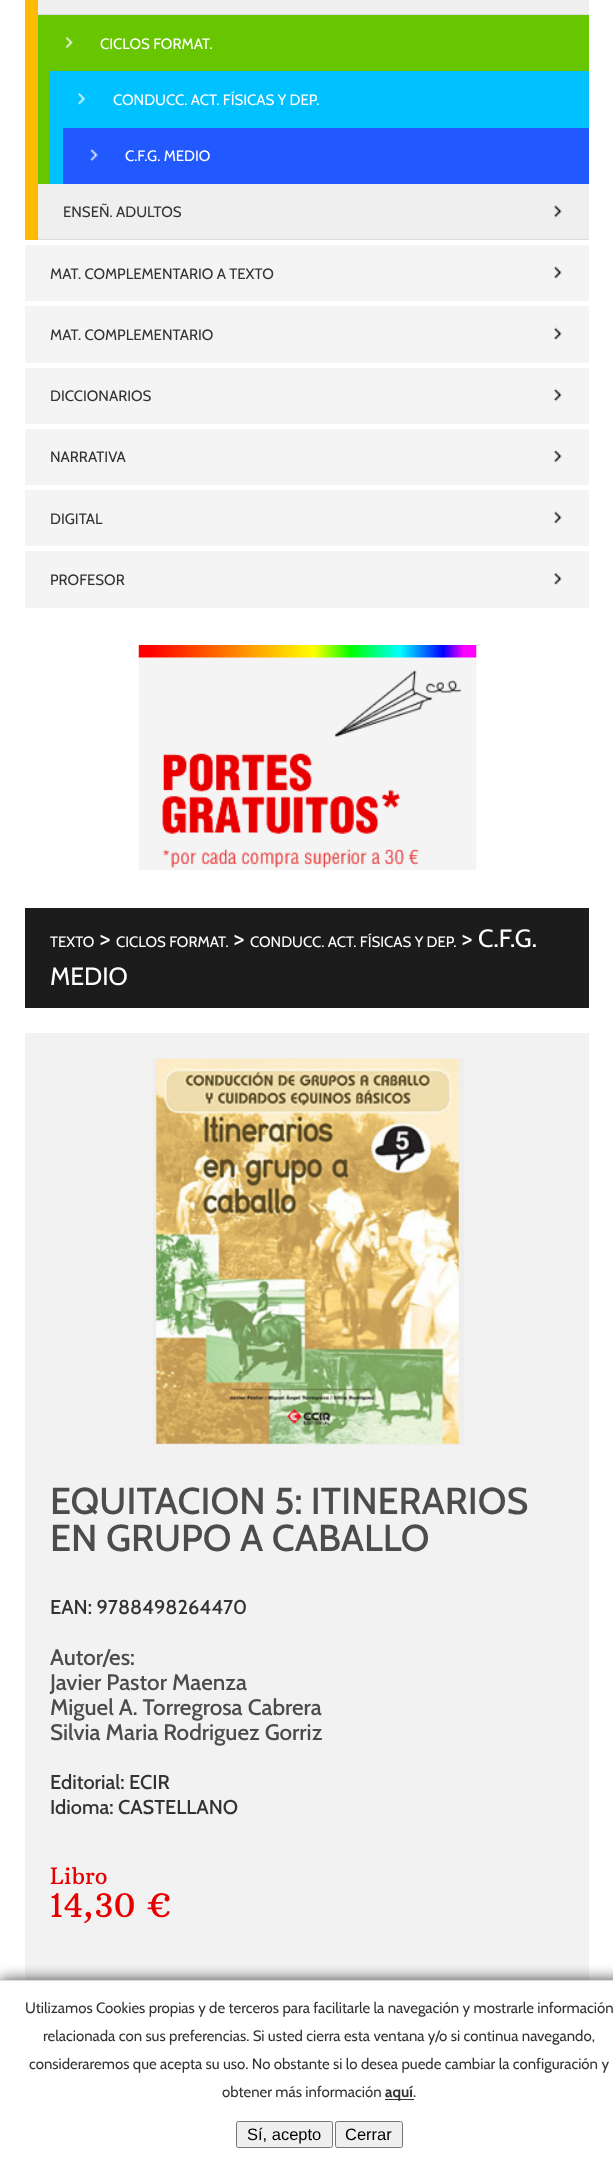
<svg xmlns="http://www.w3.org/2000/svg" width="613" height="2160">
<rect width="100%" height="100%" fill="#fff"/>
<rect x="25" width="13" height="240" fill="#fb0"/>
<rect x="38" width="551" height="14" fill="#efefef"/>
<rect x="38" y="14" width="551" height="1" fill="#ddd"/>
<rect x="38" y="15" width="551" height="56" fill="#68c600"/>
<image x="65" y="36" width="8" height="13" href="media/1.png"/>
<text x="100" y="49" style="font-family:Cabin;font-size:15px;fill:#fff">CICLOS FORMAT.</text>
<rect x="38" y="71" width="12" height="113" fill="#68c600"/>
<rect x="50" y="71" width="539" height="57" fill="#00c1ff"/>
<image x="77" y="92" width="9" height="13" href="media/2.png"/>
<text x="113" y="105" style="font-family:Cabin;font-size:15px;fill:#fff">CONDUCC. ACT. FÍSICAS Y DEP.</text>
<rect x="50" y="128" width="13" height="56" fill="#00c1ff"/>
<rect x="63" y="128" width="526" height="56" fill="#2259ff"/>
<image x="90" y="148" width="8" height="14" href="media/3.png"/>
<text x="125" y="161" style="font-family:Cabin;font-size:15px;fill:#fff">C.F.G. MEDIO</text>
<rect x="38" y="184" width="551" height="55" fill="#efefef"/>
<image x="553" y="205" width="9" height="13" href="media/4.png"/>
<rect x="38" y="239" width="551" height="1" fill="#ddd"/>
<text x="63" y="217" style="font-family:Cabin;font-size:15px;fill:#333">ENSEÑ. ADULTOS</text>
<rect x="25" y="245" width="564" height="56" fill="#f4f4f4"/>
<image x="553" y="266" width="9" height="13" href="media/5.png"/>
<text x="50" y="279" style="font-family:Cabin;font-size:15px;fill:#333">MAT. COMPLEMENTARIO A TEXTO</text>
<rect x="25" y="306" width="564" height="57" fill="#f4f4f4"/>
<image x="553" y="327" width="9" height="13" href="media/6.png"/>
<text x="50" y="340" style="font-family:Cabin;font-size:15px;fill:#333">MAT. COMPLEMENTARIO</text>
<rect x="25" y="368" width="564" height="56" fill="#f4f4f4"/>
<image x="553" y="388" width="9" height="14" href="media/7.png"/>
<text x="50" y="401" style="font-family:Cabin;font-size:15px;fill:#333">DICCIONARIOS</text>
<rect x="25" y="429" width="564" height="56" fill="#f4f4f4"/>
<image x="553" y="450" width="9" height="13" href="media/8.png"/>
<text x="50" y="462" style="font-family:Cabin;font-size:15px;fill:#333">NARRATIVA</text>
<rect x="25" y="490" width="564" height="56" fill="#f4f4f4"/>
<image x="553" y="511" width="9" height="13" href="media/9.png"/>
<text x="50" y="524" style="font-family:Cabin;font-size:15px;fill:#333">DIGITAL</text>
<rect x="25" y="551" width="564" height="57" fill="#f4f4f4"/>
<image x="553" y="572" width="9" height="13" href="media/6.png"/>
<text x="50" y="585" style="font-family:Cabin;font-size:15px;fill:#333">PROFESOR</text>
<image x="138" y="645" width="339" height="225" href="media/10.png"/>
<rect x="25" y="908" width="564" height="100" fill="#1c1c1c"/>
<text x="50" y="947" style="font-family:Cabin;font-size:15px;fill:#fff">TEXTO</text>
<text x="100" y="947" style="font-family:Cabin;font-size:25px;fill:#fff">&gt;</text>
<text x="116" y="947" style="font-family:Cabin;font-size:15px;fill:#fff">CICLOS FORMAT.</text>
<text x="234" y="947" style="font-family:Cabin;font-size:25px;fill:#fff">&gt;</text>
<text x="250" y="947" style="font-family:Cabin;font-size:15px;fill:#fff">CONDUCC. ACT. FÍSICAS Y DEP.</text>
<text x="462" y="947" style="font-family:Cabin;font-size:25px;fill:#fff">&gt; C.F.G.</text>
<text x="50" y="985" style="font-family:Cabin;font-size:25px;fill:#fff">MEDIO</text>
<rect x="25" y="1033" width="564" height="947" fill="#f2f2f2"/>
<image x="153" y="1058" width="311" height="387" href="media/11.png"/>
<text x="50" y="1514" style="font-family:Cabin;font-size:37.5px;font-weight:500;fill:#4c4c4c">EQUITACION 5: ITINERARIOS</text>
<text x="50" y="1551" style="font-family:Cabin;font-size:37.5px;font-weight:500;fill:#4c4c4c">EN GRUPO A CABALLO</text>
<text x="50" y="1614" style="font-family:Cabin;font-size:20px;font-weight:500;fill:#333">EAN: 9788498264470</text>
<text x="50" y="1665" style="font-family:Cabin;font-size:22.5px;font-weight:500;fill:#4c4c4c">Autor/es:</text>
<text x="50" y="1690" style="font-family:Cabin;font-size:22.5px;font-weight:500;fill:#4c4c4c">Javier Pastor Maenza</text>
<text x="50" y="1715" style="font-family:Cabin;font-size:22.5px;font-weight:500;fill:#4c4c4c">Miguel A. Torregrosa Cabrera</text>
<text x="50" y="1740" style="font-family:Cabin;font-size:22.5px;font-weight:500;fill:#4c4c4c">Silvia Maria Rodriguez Gorriz</text>
<text x="50" y="1789" style="font-family:Cabin;font-size:20px;font-weight:500;fill:#333">Editorial: ECIR</text>
<text x="50" y="1814" style="font-family:Cabin;font-size:20px;font-weight:500;fill:#333">Idioma: CASTELLANO</text>
<text x="50" y="1884" style="font-family:Arbutus Slab;font-size:22.5px;fill:#e80000">Libro</text>
<text x="50" y="1917" style="font-family:Arbutus Slab;font-size:32.5px;fill:#e80000">14,30 €</text>
<rect y="1980" width="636" height="180" fill="#000000bf" filter="blur(7.5px)"/>
<rect y="1981" width="613" height="179" fill="#fff"/>
<rect y="1980" width="613" height="1" fill="#ddd"/>
<text x="25" y="2013" style="font-family:Cabin;font-size:15px;fill:#333">Utilizamos Cookies propias y de terceros para facilitarle la navegación y mostrarle información</text>
<text x="43" y="2041" style="font-family:Cabin;font-size:15px;fill:#333">relacionada con sus preferencias. Si usted cierra esta ventana y/o si continua navegando,</text>
<text x="29" y="2069" style="font-family:Cabin;font-size:15px;fill:#333">consideraremos que acepta su uso. No obstante si lo desea puede cambiar la configuración y</text>
<text x="222" y="2097" style="font-family:Cabin;font-size:15px;fill:#333">obtener más información</text>
<rect x="385" y="2099" width="29" height="1" fill="#333"/>
<text x="385" y="2097" style="font-family:Cabin;font-size:15px;font-weight:bold;fill:#333">aquí</text>
<text x="413" y="2097" style="font-family:Cabin;font-size:15px;fill:#333">.</text>
<rect x="236.5" y="2121.5" width="96" height="26" rx="2" fill="#efefef" stroke="#767676"/>
<text x="247" y="2140" style="font-family:Liberation Sans;font-size:16.5px;fill:#000">Sí, acepto</text>
<rect x="335.5" y="2121.5" width="67" height="26" rx="2" fill="#efefef" stroke="#767676"/>
<text x="345" y="2140" style="font-family:Liberation Sans;font-size:16.5px;fill:#000">Cerrar</text>
</svg>
